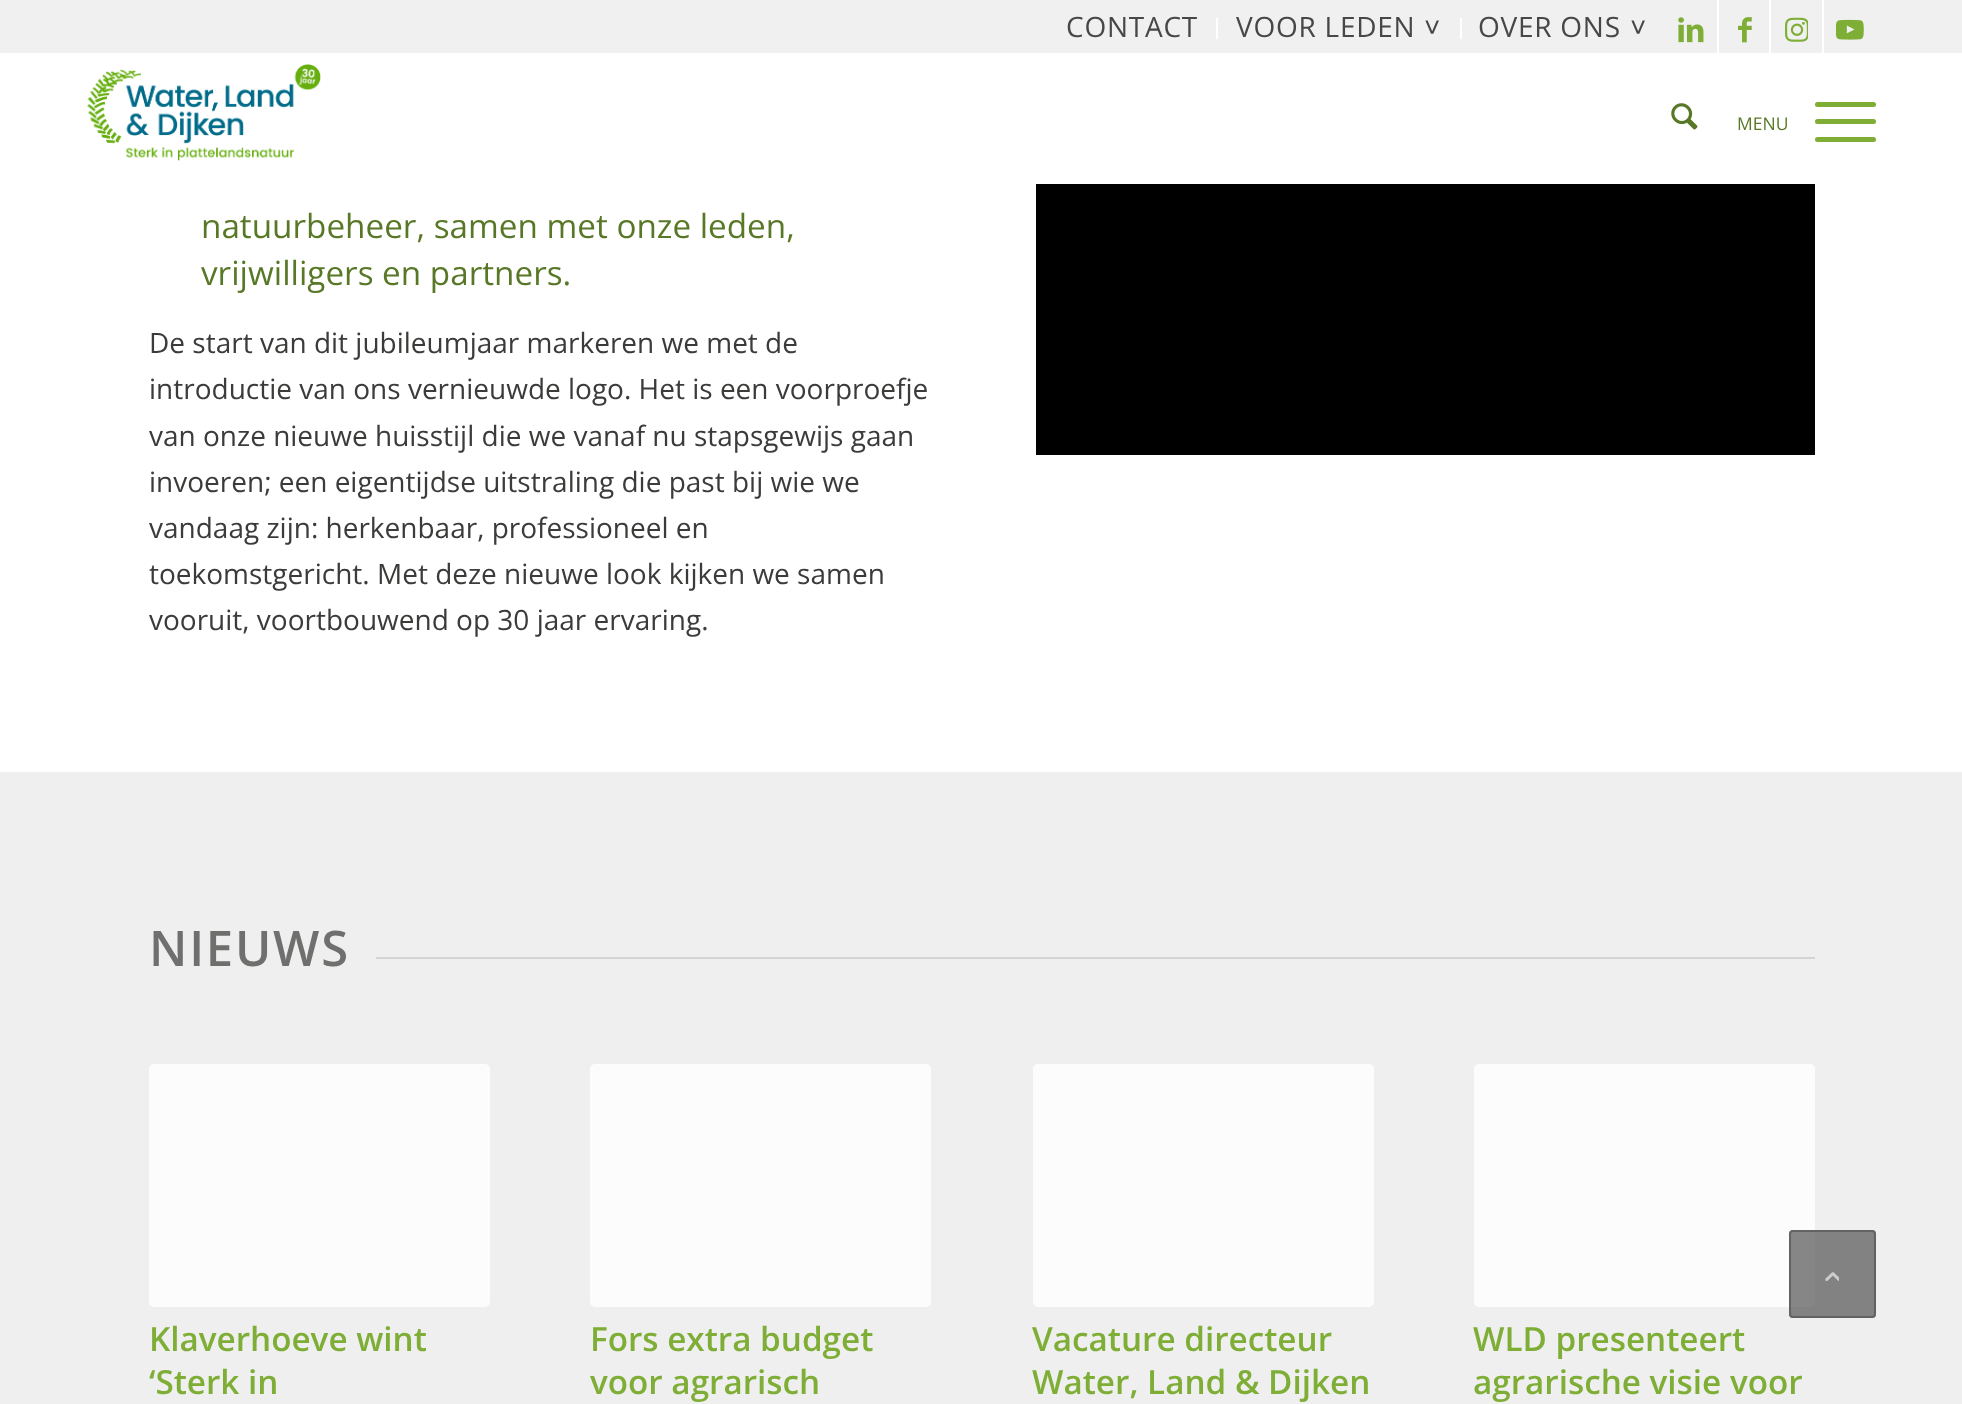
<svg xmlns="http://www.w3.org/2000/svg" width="1962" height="1404">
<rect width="100%" height="100%" fill="#fff"/>
<rect width="1962" height="53" fill="#f0f0f0"/>
<rect x="1216" y="18" width="2" height="21" fill="#fff"/>
<text x="1066" y="37" style="font-family:Open Sans;font-size:28px;letter-spacing:0.75px;fill:#474747">CONTACT</text>
<rect x="1460" y="18" width="2" height="21" fill="#fff"/>
<text x="1236" y="37" style="font-family:Open Sans;font-size:28px;letter-spacing:0.75px;fill:#474747">VOOR LEDEN</text>
<text x="1424" y="37" style="font-family:Liberation Sans;font-size:28px;letter-spacing:0.75px;fill:#474747">˅</text>
<text x="1478" y="37" style="font-family:Open Sans;font-size:28px;letter-spacing:0.75px;fill:#474747">OVER ONS</text>
<text x="1630" y="37" style="font-family:Liberation Sans;font-size:28px;letter-spacing:0.75px;fill:#474747">˅</text>
<rect x="1717" width="2" height="53" fill="#fff"/>
<image x="1678" y="17" width="26" height="26" href="media/1.png"/>
<rect x="1769" width="2" height="53" fill="#fff"/>
<image x="1738" y="17" width="14" height="26" href="media/2.png"/>
<rect x="1822" width="2" height="53" fill="#fff"/>
<image x="1785" y="17" width="23" height="25" href="media/3.png"/>
<image x="1836" y="19" width="28" height="21" href="media/4.png"/>
<image x="87" y="64" width="234" height="97" href="media/5.png"/>
<image x="1671" y="103" width="27" height="27" href="media/6.png"/>
<text x="1737" y="130" style="font-family:Open Sans;font-size:17.5px;fill:#587827">MENU</text>
<rect x="1815" y="119" width="61" height="5" rx="2.5" fill="#7eae36"/>
<rect x="1815" y="102" width="61" height="5" rx="2.5" fill="#7eae36"/>
<rect x="1815" y="137" width="61" height="5" rx="2.5" fill="#7eae36"/>
<text x="201" y="238" style="font-family:Open Sans;font-size:33.25px;fill:#587827">natuurbeheer, samen met onze leden,</text>
<text x="201" y="285" style="font-family:Open Sans;font-size:33.25px;fill:#587827">vrijwilligers en partners.</text>
<text x="149" y="353" style="font-family:Open Sans;font-size:28px;fill:#3b3b3a">De start van dit jubileumjaar markeren we met de</text>
<text x="149" y="399" style="font-family:Open Sans;font-size:28px;fill:#3b3b3a">introductie van ons vernieuwde logo. Het is een voorproefje</text>
<text x="149" y="446" style="font-family:Open Sans;font-size:28px;fill:#3b3b3a">van onze nieuwe huisstijl die we vanaf nu stapsgewijs gaan</text>
<text x="149" y="492" style="font-family:Open Sans;font-size:28px;fill:#3b3b3a">invoeren; een eigentijdse uitstraling die past bij wie we</text>
<text x="149" y="538" style="font-family:Open Sans;font-size:28px;fill:#3b3b3a">vandaag zijn: herkenbaar, professioneel en</text>
<text x="149" y="584" style="font-family:Open Sans;font-size:28px;fill:#3b3b3a">toekomstgericht. Met deze nieuwe look kijken we samen</text>
<text x="149" y="630" style="font-family:Open Sans;font-size:28px;fill:#3b3b3a">vooruit, voortbouwend op 30 jaar ervaring.</text>
<rect x="1036" y="184" width="779" height="271" fill="#000"/>
<rect y="772" width="1962" height="632" fill="#efefef"/>
<text x="149" y="966" style="font-family:Open Sans;font-size:49px;font-weight:600;letter-spacing:1.75px;fill:#6f6f6e">NIEUWS</text>
<rect x="376" y="957" width="1439" height="2" fill="#d4d4d4"/>
<rect x="149" y="1064" width="341" height="243" rx="5" fill="#fcfcfc"/>
<text x="149" y="1351" style="font-family:Open Sans;font-size:33.25px;font-weight:600;fill:#7eae36">Klaverhoeve wint</text>
<text x="149" y="1394" style="font-family:Open Sans;font-size:33.25px;font-weight:600;fill:#7eae36">‘Sterk in</text>
<rect x="590" y="1064" width="341" height="243" rx="5" fill="#fcfcfc"/>
<text x="590" y="1351" style="font-family:Open Sans;font-size:33.25px;font-weight:600;fill:#7eae36">Fors extra budget</text>
<text x="590" y="1394" style="font-family:Open Sans;font-size:33.25px;font-weight:600;fill:#7eae36">voor agrarisch</text>
<rect x="1033" y="1064" width="341" height="243" rx="5" fill="#fcfcfc"/>
<text x="1032" y="1351" style="font-family:Open Sans;font-size:33.25px;font-weight:600;fill:#7eae36">Vacature directeur</text>
<text x="1032" y="1394" style="font-family:Open Sans;font-size:33.25px;font-weight:600;fill:#7eae36">Water, Land &amp; Dijken</text>
<rect x="1474" y="1064" width="341" height="243" rx="5" fill="#fcfcfc"/>
<text x="1473" y="1351" style="font-family:Open Sans;font-size:33.25px;font-weight:600;fill:#7eae36">WLD presenteert</text>
<text x="1473" y="1394" style="font-family:Open Sans;font-size:33.25px;font-weight:600;fill:#7eae36">agrarische visie voor</text>
<rect x="1789" y="1230" width="87" height="88" rx="4" fill="#545454b3"/>
<rect x="1790" y="1231" width="85" height="86" rx="3" fill="none" stroke="#545454b3" stroke-width="2"/>
<image x="1825" y="1272" width="14" height="9" href="media/7.png"/>
</svg>
